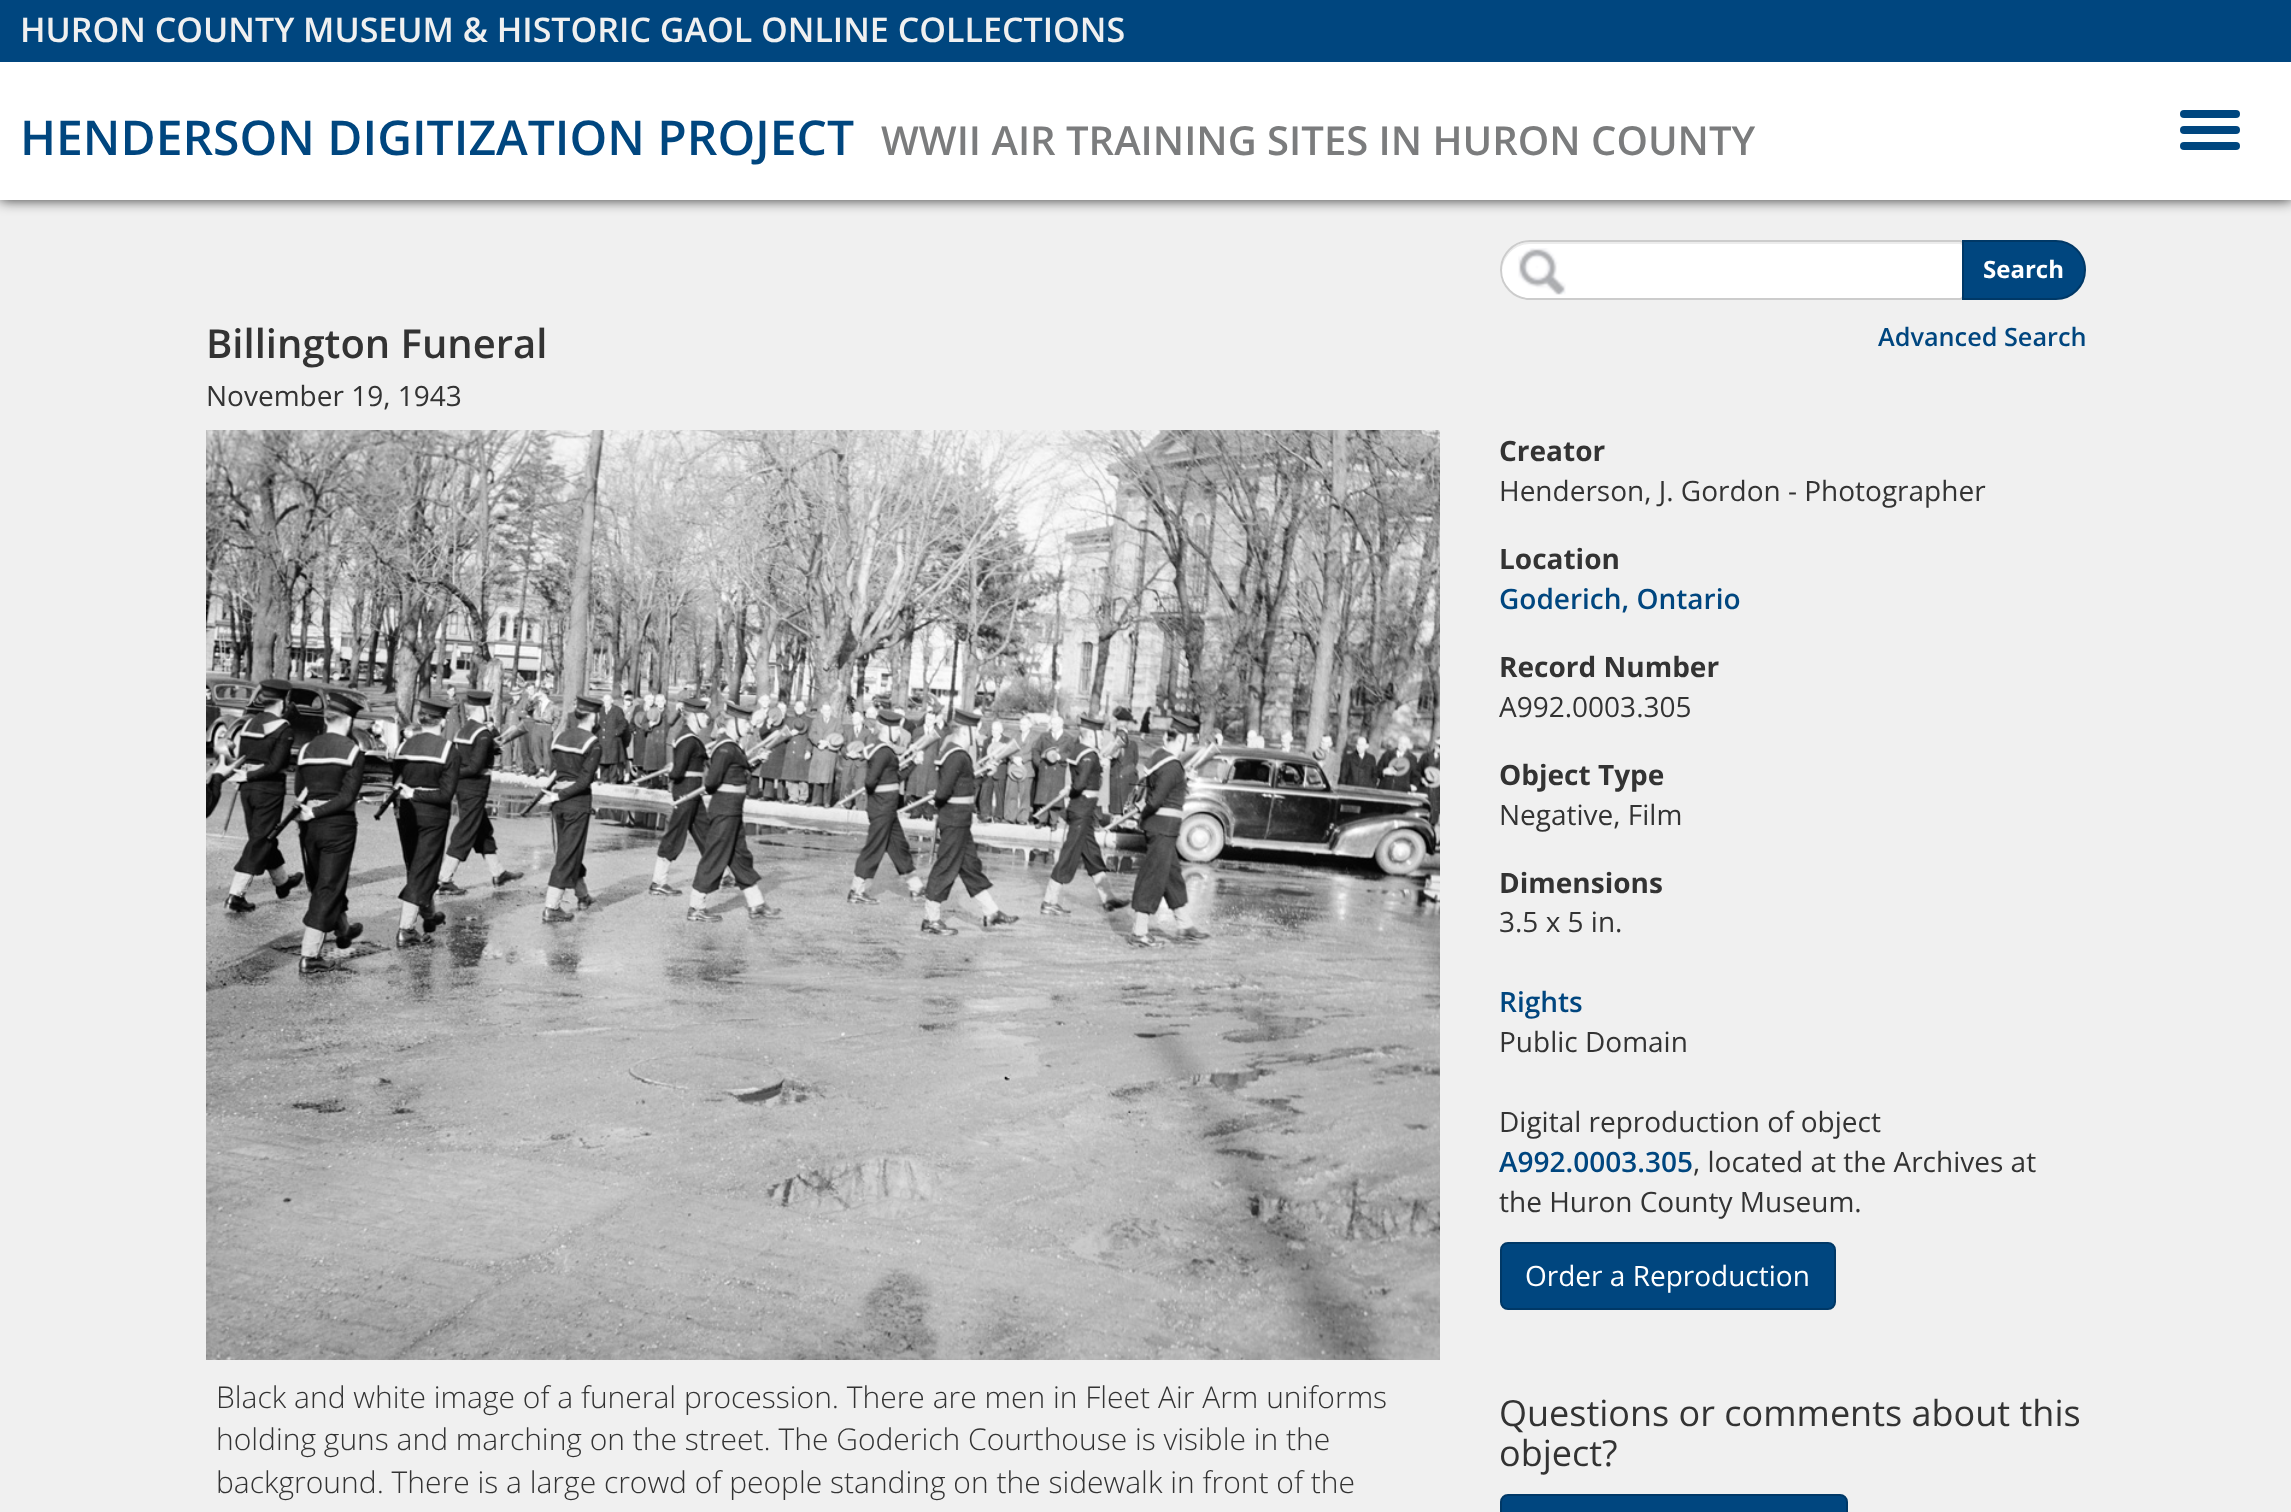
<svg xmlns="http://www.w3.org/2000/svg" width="2291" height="1512">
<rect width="100%" height="100%" fill="#f0f0f0"/>
<rect width="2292" height="200" fill="#000000cc" filter="blur(7px)"/>
<rect y="62" width="2291" height="138" fill="#fff"/>
<rect width="2291" height="62" fill="#00467f"/>
<text x="20" y="42" style="font-family:Open Sans;font-size:34px;font-weight:600;fill:#f0f0f0">HURON COUNTY MUSEUM &amp; HISTORIC GAOL ONLINE COLLECTIONS</text>
<text x="20" y="155" style="font-family:Open Sans;font-size:48px;font-weight:600;fill:#00467f">HENDERSON DIGITIZATION PROJECT</text>
<text x="881" y="155" style="font-family:Open Sans;font-size:40px;font-weight:600;fill:#7b7c7d">WWII AIR TRAINING SITES IN HURON COUNTY</text>
<rect x="2180" y="110" width="60" height="8" rx="4" fill="#00467f"/>
<rect x="2180" y="126" width="60" height="8" rx="4" fill="#00467f"/>
<rect x="2180" y="142" width="60" height="8" rx="4" fill="#00467f"/>
<path d="M1530 240h430c2 0 4 2 4 4v52c0 2-2 4-4 4h-430c-16.5 0-30-13.5-30-30c0-16.5 13.5-30 30-30z" fill="#fff"/>
<image x="1518" y="248" width="48" height="47" href="media/1.png"/>
<path d="M1530 244h430c1 0 2 1 2 2c0-2 0-4-2-4h-430c-16 0-29 13-28 29c1-15 13-27 28-27z" fill="#ececec"/>
<path d="M1530 241h430c1.5 0 3 1.5 3 3v52c0 1.5-1.5 3-3 3h-430c-16 0-29-13-29-29c0-16 13-29 29-29z" fill="none" stroke="#ccc" stroke-width="2"/>
<path d="M1963 241h93c16 0 29 13 29 29c0 16-13 29-29 29h-93z" fill="#00467f" stroke="#003866" stroke-width="2"/>
<text x="1983" y="278" style="font-family:Open Sans;font-size:24px;font-weight:bold;fill:#fff">Search</text>
<text x="1878" y="346" style="font-family:Open Sans;font-size:25.25px;font-weight:600;fill:#00467f">Advanced Search</text>
<text x="206" y="358" style="font-family:Open Sans;font-size:40px;font-weight:600;fill:#333">Billington Funeral</text>
<text x="206" y="406" style="font-family:Open Sans;font-size:28px;fill:#333">November 19, 1943</text>
<image x="206" y="430" width="1234" height="930" href="media/2.png"/>
<text x="216" y="1408" style="font-family:Open Sans;font-size:30px;font-weight:300;fill:#333">Black and white image of a funeral procession. There are men in Fleet Air Arm uniforms</text>
<text x="216" y="1450" style="font-family:Open Sans;font-size:30px;font-weight:300;fill:#333">holding guns and marching on the street. The Goderich Courthouse is visible in the</text>
<text x="216" y="1493" style="font-family:Open Sans;font-size:30px;font-weight:300;fill:#333">background. There is a large crowd of people standing on the sidewalk in front of the</text>
<text x="1499" y="461" style="font-family:Open Sans;font-size:28px;font-weight:bold;fill:#333">Creator</text>
<text x="1499" y="501" style="font-family:Open Sans;font-size:28px;fill:#333">Henderson, J. Gordon - Photographer</text>
<text x="1499" y="569" style="font-family:Open Sans;font-size:28px;font-weight:bold;fill:#333">Location</text>
<text x="1499" y="609" style="font-family:Open Sans;font-size:28px;font-weight:600;fill:#00467f">Goderich, Ontario</text>
<text x="1499" y="677" style="font-family:Open Sans;font-size:28px;font-weight:bold;fill:#333">Record Number</text>
<text x="1499" y="717" style="font-family:Open Sans;font-size:28px;fill:#333">A992.0003.305</text>
<text x="1499" y="785" style="font-family:Open Sans;font-size:28px;font-weight:bold;fill:#333">Object Type</text>
<text x="1499" y="825" style="font-family:Open Sans;font-size:28px;fill:#333">Negative, Film</text>
<text x="1499" y="893" style="font-family:Open Sans;font-size:28px;font-weight:bold;fill:#333">Dimensions</text>
<text x="1499" y="932" style="font-family:Open Sans;font-size:28px;fill:#333">3.5 x 5 in.</text>
<text x="1499" y="1012" style="font-family:Open Sans;font-size:28px;font-weight:600;fill:#00467f">Rights</text>
<text x="1499" y="1052" style="font-family:Open Sans;font-size:28px;fill:#333">Public Domain</text>
<text x="1499" y="1132" style="font-family:Open Sans;font-size:28px;fill:#333">Digital reproduction of object</text>
<text x="1499" y="1172" style="font-family:Open Sans;font-size:28px;font-weight:600;fill:#00467f">A992.0003.305</text>
<text x="1693" y="1172" style="font-family:Open Sans;font-size:28px;fill:#333">, located at the Archives at</text>
<text x="1499" y="1212" style="font-family:Open Sans;font-size:28px;fill:#333">the Huron County Museum.</text>
<rect x="1501" y="1243" width="334" height="66" rx="7" fill="#00467f" stroke="#003866" stroke-width="2"/>
<text x="1525" y="1286" style="font-family:Open Sans;font-size:28px;fill:#fff">Order a Reproduction</text>
<text x="1499" y="1426" style="font-family:Open Sans;font-size:36px;fill:#333">Questions or comments about this</text>
<text x="1499" y="1466" style="font-family:Open Sans;font-size:36px;fill:#333">object?</text>
<rect x="1501" y="1495" width="346" height="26" rx="7" fill="#00467f" stroke="#003866" stroke-width="2"/>
</svg>
